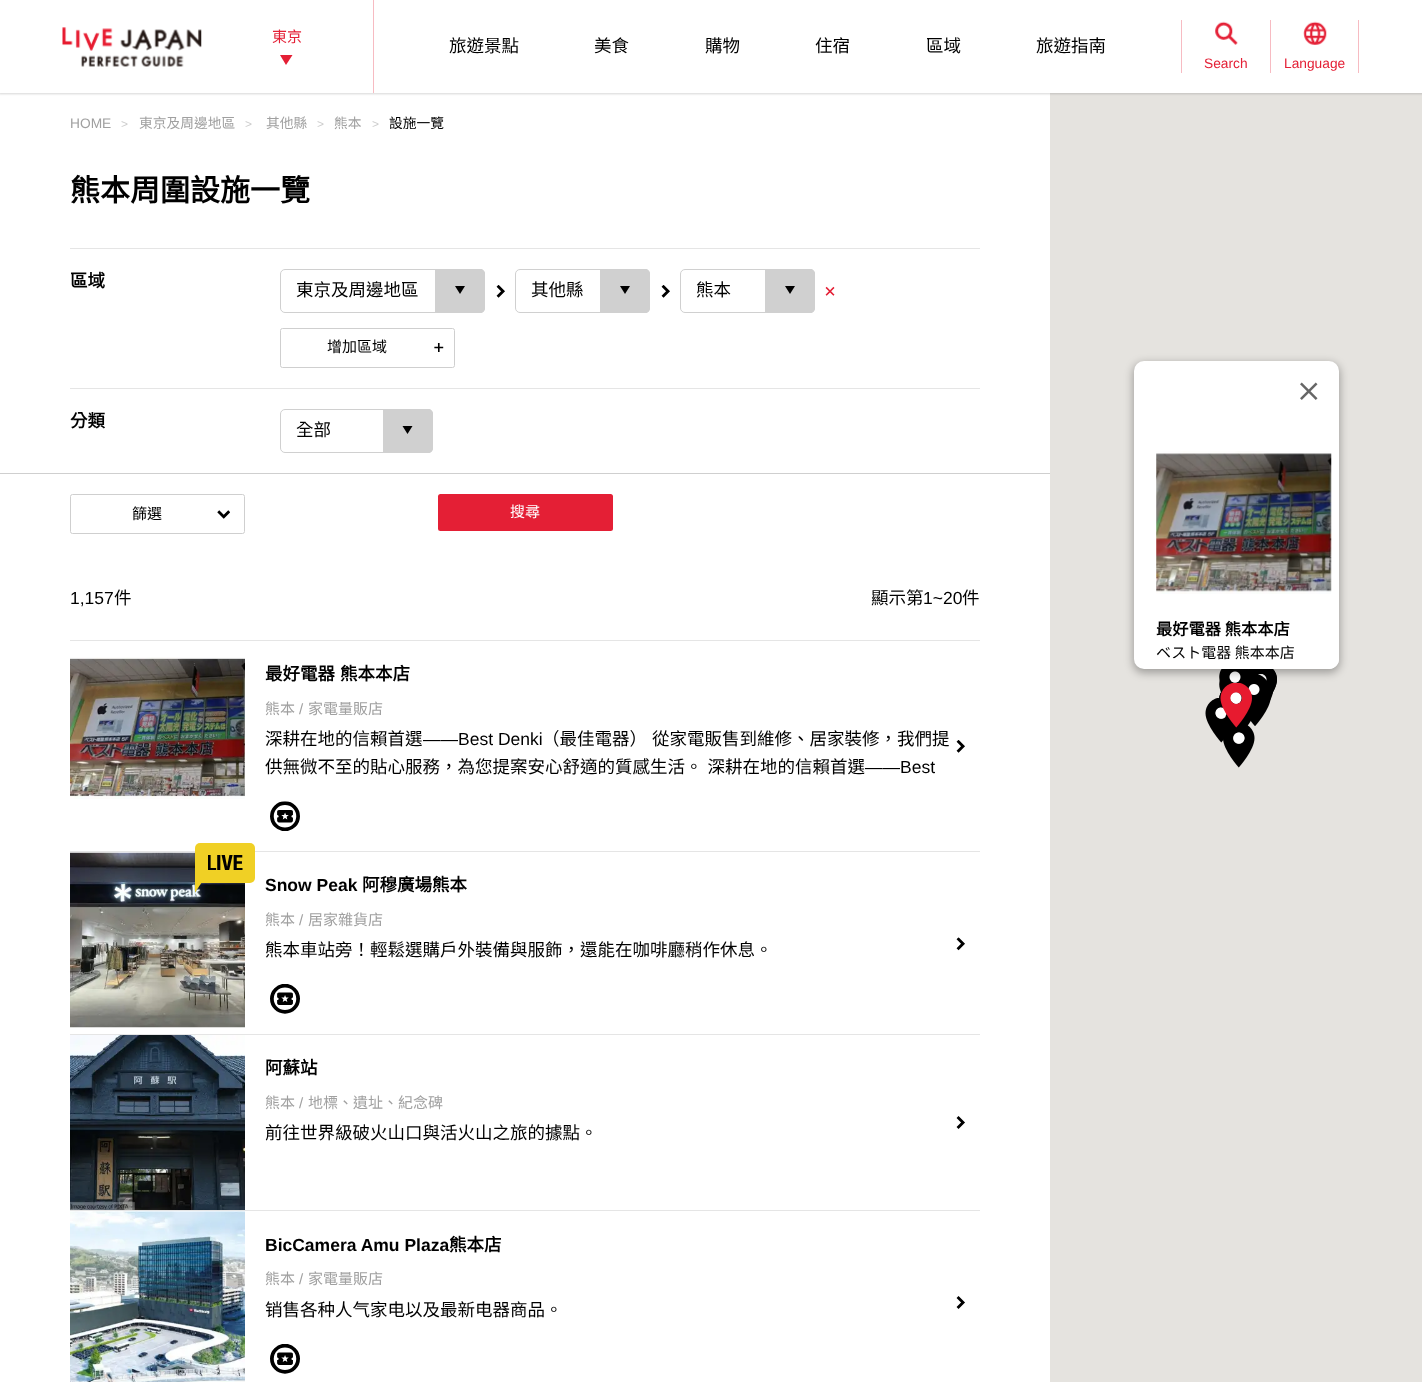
<svg xmlns="http://www.w3.org/2000/svg" width="1422" height="1382">
<rect width="100%" height="100%" fill="#fff"/>
<rect x="1050" y="93" width="372" height="1289" fill="#e5e3df"/>
<rect x="-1" y="-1" width="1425" height="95" fill="#32323233" filter="blur(1px)"/>
<rect width="1422" height="93" fill="#fff"/>
<image x="62" y="27" width="140" height="40" href="media/1.png"/>
<text x="272" y="42" style="font-family:Noto Sans CJK TC;font-size:15px;fill:#e41f35">東京</text>
<path d="M280 55h12.5l-6.5 10z" fill="#e41f35"/>
<rect x="373" width="1" height="93" fill="#f7bbc2"/>
<text x="449" y="52" style="font-family:Noto Sans CJK TC;font-size:17.5px;fill:#000">旅遊景點</text>
<text x="594" y="52" style="font-family:Noto Sans CJK TC;font-size:17.5px;fill:#000">美食</text>
<text x="705" y="52" style="font-family:Noto Sans CJK TC;font-size:17.5px;fill:#000">購物</text>
<text x="815" y="52" style="font-family:Noto Sans CJK TC;font-size:17.5px;fill:#000">住宿</text>
<text x="926" y="52" style="font-family:Noto Sans CJK TC;font-size:17.5px;fill:#000">區域</text>
<text x="1036" y="52" style="font-family:Noto Sans CJK TC;font-size:17.5px;fill:#000">旅遊指南</text>
<rect x="1181" y="20" width="1" height="53" fill="#f7bbc2"/>
<image x="1215" y="21" width="23" height="24" href="media/2.png"/>
<text x="1204" y="68" style="font-family:Liberation Sans;font-size:13.75px;fill:#e41f35">Search</text>
<rect x="1358" y="20" width="1" height="53" fill="#f7bbc2"/>
<rect x="1270" y="20" width="1" height="53" fill="#f7bbc2"/>
<image x="1303" y="21" width="24" height="24" href="media/3.png"/>
<text x="1284" y="68" style="font-family:Liberation Sans;font-size:13.75px;fill:#e41f35">Language</text>
<text x="70" y="128" style="font-family:Liberation Sans;font-size:13.75px;fill:#a0a0a0">HOME</text>
<text x="121" y="128" style="font-family:Liberation Sans;font-size:12px;fill:#ccc">&gt;</text>
<text x="139" y="128" style="font-family:Noto Sans CJK TC;font-size:13.75px;fill:#a0a0a0">東京及周邊地區</text>
<text x="245" y="128" style="font-family:Liberation Sans;font-size:12px;fill:#ccc">&gt;</text>
<text x="266" y="128" style="font-family:Noto Sans CJK TC;font-size:13.75px;fill:#a0a0a0">其他縣</text>
<text x="317" y="128" style="font-family:Liberation Sans;font-size:12px;fill:#ccc">&gt;</text>
<text x="334" y="128" style="font-family:Noto Sans CJK TC;font-size:13.75px;fill:#a0a0a0">熊本</text>
<text x="372" y="128" style="font-family:Liberation Sans;font-size:12px;fill:#ccc">&gt;</text>
<text x="389" y="128" style="font-family:Noto Sans CJK TC;font-size:13.75px;fill:#000">設施一覽</text>
<text x="70" y="201" style="font-family:Noto Sans CJK TC;font-size:30px;font-weight:bold;fill:#000">熊本周圍設施一覽</text>
<rect x="70" y="248" width="910" height="1" fill="#e5e5e5"/>
<rect x="70" y="388" width="910" height="1" fill="#e5e5e5"/>
<text x="70" y="287" style="font-family:Noto Sans CJK TC;font-size:17.5px;font-weight:bold;fill:#000">區域</text>
<path d="M435 269h45c3 0 5 2 5 5v34c0 3-2 5-5 5h-45z" fill="#d0d0d0"/>
<path d="M455 286h10l-5 8z" fill="#000"/>
<rect x="280.5" y="269.5" width="204" height="43" rx="4.5" fill="none" stroke="#d0d0d0"/>
<text x="296" y="296" style="font-family:Noto Sans CJK TC;font-size:17.5px;fill:#000">東京及周邊地區</text>
<image x="496" y="285" width="9" height="13" href="media/4.png"/>
<path d="M600 269h45c3 0 5 2 5 5v34c0 3-2 5-5 5h-45z" fill="#d0d0d0"/>
<path d="M620 286h10l-5 8z" fill="#000"/>
<rect x="515.5" y="269.5" width="134" height="43" rx="4.5" fill="none" stroke="#d0d0d0"/>
<text x="531" y="296" style="font-family:Noto Sans CJK TC;font-size:17.5px;fill:#000">其他縣</text>
<image x="661" y="285" width="9" height="13" href="media/4.png"/>
<path d="M765 269h45c3 0 5 2 5 5v34c0 3-2 5-5 5h-45z" fill="#d0d0d0"/>
<path d="M785 286h10l-5 8z" fill="#000"/>
<rect x="680.5" y="269.5" width="134" height="43" rx="4.5" fill="none" stroke="#d0d0d0"/>
<text x="696" y="296" style="font-family:Noto Sans CJK TC;font-size:17.5px;fill:#000">熊本</text>
<image x="825" y="286" width="10" height="10" href="media/5.png"/>
<rect x="280.5" y="328.5" width="174" height="39" rx="2" fill="none" stroke="#cfcfcf"/>
<text x="327" y="352" style="font-family:Noto Sans CJK TC;font-size:15px;fill:#000">增加區域</text>
<image x="434" y="343" width="10" height="9" href="media/6.png"/>
<text x="70" y="427" style="font-family:Noto Sans CJK TC;font-size:17.5px;font-weight:bold;fill:#000">分類</text>
<path d="M383 409h45c3 0 5 2 5 5v34c0 3-2 5-5 5h-45z" fill="#d0d0d0"/>
<path d="M402.5 426h10l-5 8z" fill="#000"/>
<rect x="280.5" y="409.5" width="152" height="43" rx="4.5" fill="none" stroke="#d0d0d0"/>
<text x="296" y="436" style="font-family:Noto Sans CJK TC;font-size:17.5px;fill:#000">全部</text>
<rect y="473" width="1050" height="1" fill="#cfcfcf"/>
<rect x="70.5" y="494.5" width="174" height="39" rx="2" fill="none" stroke="#cfcfcf"/>
<text x="132" y="519" style="font-family:Noto Sans CJK TC;font-size:15px;fill:#000">篩選</text>
<image x="217" y="510" width="13" height="9" href="media/7.png"/>
<rect x="438" y="494" width="175" height="37" rx="2.5" fill="#e41f35"/>
<text x="510" y="517" style="font-family:Noto Sans CJK TC;font-size:15px;fill:#fff">搜尋</text>
<text x="70" y="604" style="font-family:Liberation Sans;font-size:17.5px;fill:#000">1,157</text>
<text x="114" y="604" style="font-family:Noto Sans CJK TC;font-size:17.5px;fill:#000">件</text>
<text x="871" y="604" style="font-family:Noto Sans CJK TC;font-size:17.5px;fill:#000">顯示第</text>
<text x="923" y="604" style="font-family:Liberation Sans;font-size:17.5px;fill:#000">1~20</text>
<text x="962" y="604" style="font-family:Noto Sans CJK TC;font-size:17.5px;fill:#000">件</text>
<rect x="70" y="640" width="910" height="1" fill="#e5e5e5"/>
<rect x="70" y="851" width="910" height="1" fill="#e5e5e5"/>
<image x="70" y="657" width="175" height="142" href="media/8.png"/>
<text x="265" y="680" word-spacing="1" style="font-family:Noto Sans CJK TC;font-size:17.5px;font-weight:bold;fill:#000">最好電器 熊本本店</text>
<text x="265" y="714" style="font-family:Noto Sans CJK TC;font-size:15px;fill:#a0a0a0">熊本</text>
<text x="299" y="714" style="font-family:Liberation Sans;font-size:15px;fill:#a0a0a0">/</text>
<text x="308" y="714" style="font-family:Noto Sans CJK TC;font-size:15px;fill:#a0a0a0">家電量販店</text>
<text x="265" y="745" style="font-family:Noto Sans CJK TC;font-size:17.5px;fill:#000">深耕在地的信賴首選</text>
<text x="423" y="745" style="font-family:Liberation Sans;font-size:17.5px;fill:#000">——Best Denki</text>
<text x="542" y="745" style="font-family:Noto Sans CJK TC;font-size:17.5px;fill:#000">（最佳電器）</text>
<text x="652" y="745" style="font-family:Noto Sans CJK TC;font-size:17.5px;fill:#000">從家電販售到維修、居家裝修，我們提</text>
<text x="265" y="773" word-spacing="1" style="font-family:Noto Sans CJK TC;font-size:17.5px;fill:#000">供無微不至的貼心服務，為您提案安心舒適的質感生活。 深耕在地的信賴首選</text>
<text x="865" y="773" style="font-family:Liberation Sans;font-size:17.5px;fill:#000">——Best</text>
<image x="270" y="801" width="30" height="30" href="media/9.png"/>
<image x="956" y="740" width="9" height="13" href="media/4.png"/>
<rect x="70" y="1034" width="910" height="1" fill="#e5e5e5"/>
<image x="70" y="852" width="175" height="176" href="media/11.png"/>
<rect x="195" y="843" width="60" height="40" rx="5" fill="#f0d025"/>
<image x="208" y="855" width="35" height="15" href="media/10.png"/>
<path d="M195 892.5v-15h10z" fill="#f0d025"/>
<text x="265" y="891" style="font-family:Liberation Sans;font-size:17.5px;font-weight:bold;fill:#000">Snow Peak</text>
<text x="362" y="891" style="font-family:Noto Sans CJK TC;font-size:17.5px;font-weight:bold;fill:#000">阿穆廣場熊本</text>
<text x="265" y="925" style="font-family:Noto Sans CJK TC;font-size:15px;fill:#a0a0a0">熊本</text>
<text x="299" y="925" style="font-family:Liberation Sans;font-size:15px;fill:#a0a0a0">/</text>
<text x="308" y="925" style="font-family:Noto Sans CJK TC;font-size:15px;fill:#a0a0a0">居家雜貨店</text>
<text x="265" y="956" style="font-family:Noto Sans CJK TC;font-size:17.5px;fill:#000">熊本車站旁！輕鬆選購戶外裝備與服飾，還能在咖啡廳稍作休息。</text>
<image x="270" y="984" width="30" height="30" href="media/12.png"/>
<image x="956" y="937" width="9" height="14" href="media/13.png"/>
<rect x="70" y="1210" width="910" height="1" fill="#e5e5e5"/>
<image x="70" y="1035" width="175" height="175" href="media/14.png"/>
<text x="265" y="1074" style="font-family:Noto Sans CJK TC;font-size:17.5px;font-weight:bold;fill:#000">阿蘇站</text>
<text x="265" y="1108" style="font-family:Noto Sans CJK TC;font-size:15px;fill:#a0a0a0">熊本</text>
<text x="299" y="1108" style="font-family:Liberation Sans;font-size:15px;fill:#a0a0a0">/</text>
<text x="308" y="1108" style="font-family:Noto Sans CJK TC;font-size:15px;fill:#a0a0a0">地標、遺址、紀念碑</text>
<text x="265" y="1139" style="font-family:Noto Sans CJK TC;font-size:17.5px;fill:#000">前往世界級破火山口與活火山之旅的據點。</text>
<image x="956" y="1116" width="9" height="13" href="media/15.png"/>
<image x="70" y="1211" width="175" height="171" href="media/16.png"/>
<text x="265" y="1251" style="font-family:Liberation Sans;font-size:17.5px;font-weight:bold;fill:#000">BicCamera Amu Plaza</text>
<text x="449" y="1251" style="font-family:Noto Sans CJK TC;font-size:17.5px;font-weight:bold;fill:#000">熊本店</text>
<text x="265" y="1284" style="font-family:Noto Sans CJK TC;font-size:15px;fill:#a0a0a0">熊本</text>
<text x="299" y="1284" style="font-family:Liberation Sans;font-size:15px;fill:#a0a0a0">/</text>
<text x="308" y="1284" style="font-family:Noto Sans CJK TC;font-size:15px;fill:#a0a0a0">家電量販店</text>
<text x="265" y="1316" style="font-family:Noto Sans CJK TC;font-size:17.5px;fill:#000">销售各种人气家电以及最新电器商品。</text>
<image x="270" y="1344" width="30" height="30" href="media/12.png"/>
<image x="956" y="1296" width="9" height="13" href="media/15.png"/>
<image x="1258" y="674" width="16" height="31" href="media/26.png"/>
<image x="1248" y="669" width="29" height="27" href="media/20.png"/>
<image x="1230" y="680" width="10" height="1" href="media/25.png"/>
<image x="1219" y="692" width="8" height="25" href="media/28.png"/>
<image x="1219" y="692" width="8" height="25" href="media/29.png"/>
<image x="1219" y="671" width="22" height="22" href="media/22.png"/>
<image x="1238" y="701" width="13" height="33" href="media/35.png"/>
<image x="1238" y="701" width="9" height="23" href="media/36.png"/>
<image x="1239" y="694" width="32" height="32" href="media/34.png"/>
<image x="1219" y="669" width="30" height="33" href="media/19.png"/>
<image x="1230" y="694" width="22" height="30" href="media/32.png"/>
<image x="1248" y="669" width="20" height="34" href="media/21.png"/>
<image x="1253" y="669" width="24" height="25" href="media/23.png"/>
<image x="1219" y="692" width="23" height="32" href="media/30.png"/>
<image x="1230" y="692" width="22" height="13" href="media/31.png"/>
<image x="1238" y="674" width="29" height="29" href="media/24.png"/>
<image x="1223" y="724" width="32" height="44" href="media/37.png"/>
<image x="1205" y="698" width="29" height="45" href="media/33.png"/>
<image x="1220" y="683" width="32" height="45" href="media/27.png"/>
<rect x="1133" y="363" width="207" height="310" rx="11" fill="#0000004d" filter="blur(4.5px)"/>
<rect x="1134" y="361" width="205" height="308" rx="10" fill="#fff"/>
<image x="1300" y="382" width="18" height="18" href="media/17.png"/>
<path d="M1151.5 421h185c1.5 0 2.5 1 2.5 2.5v235.5c0 5.5-4.5 10-10 10h-177.5c-1.5 0-2.5-1-2.5-2.5v-243c0-1.5 1-2.5 2.5-2.5z" fill="#fff"/>
<image x="1156" y="451" width="176" height="143" href="media/18.png"/>
<text x="1156" y="635" style="font-family:Noto Sans CJK TC;font-size:16.25px;font-weight:bold;fill:#000">最好電器 熊本本店</text>
<text x="1156" y="658" style="font-family:Noto Sans CJK TC;font-size:15px;fill:#000">ベスト電器 熊本本店</text>
</svg>
